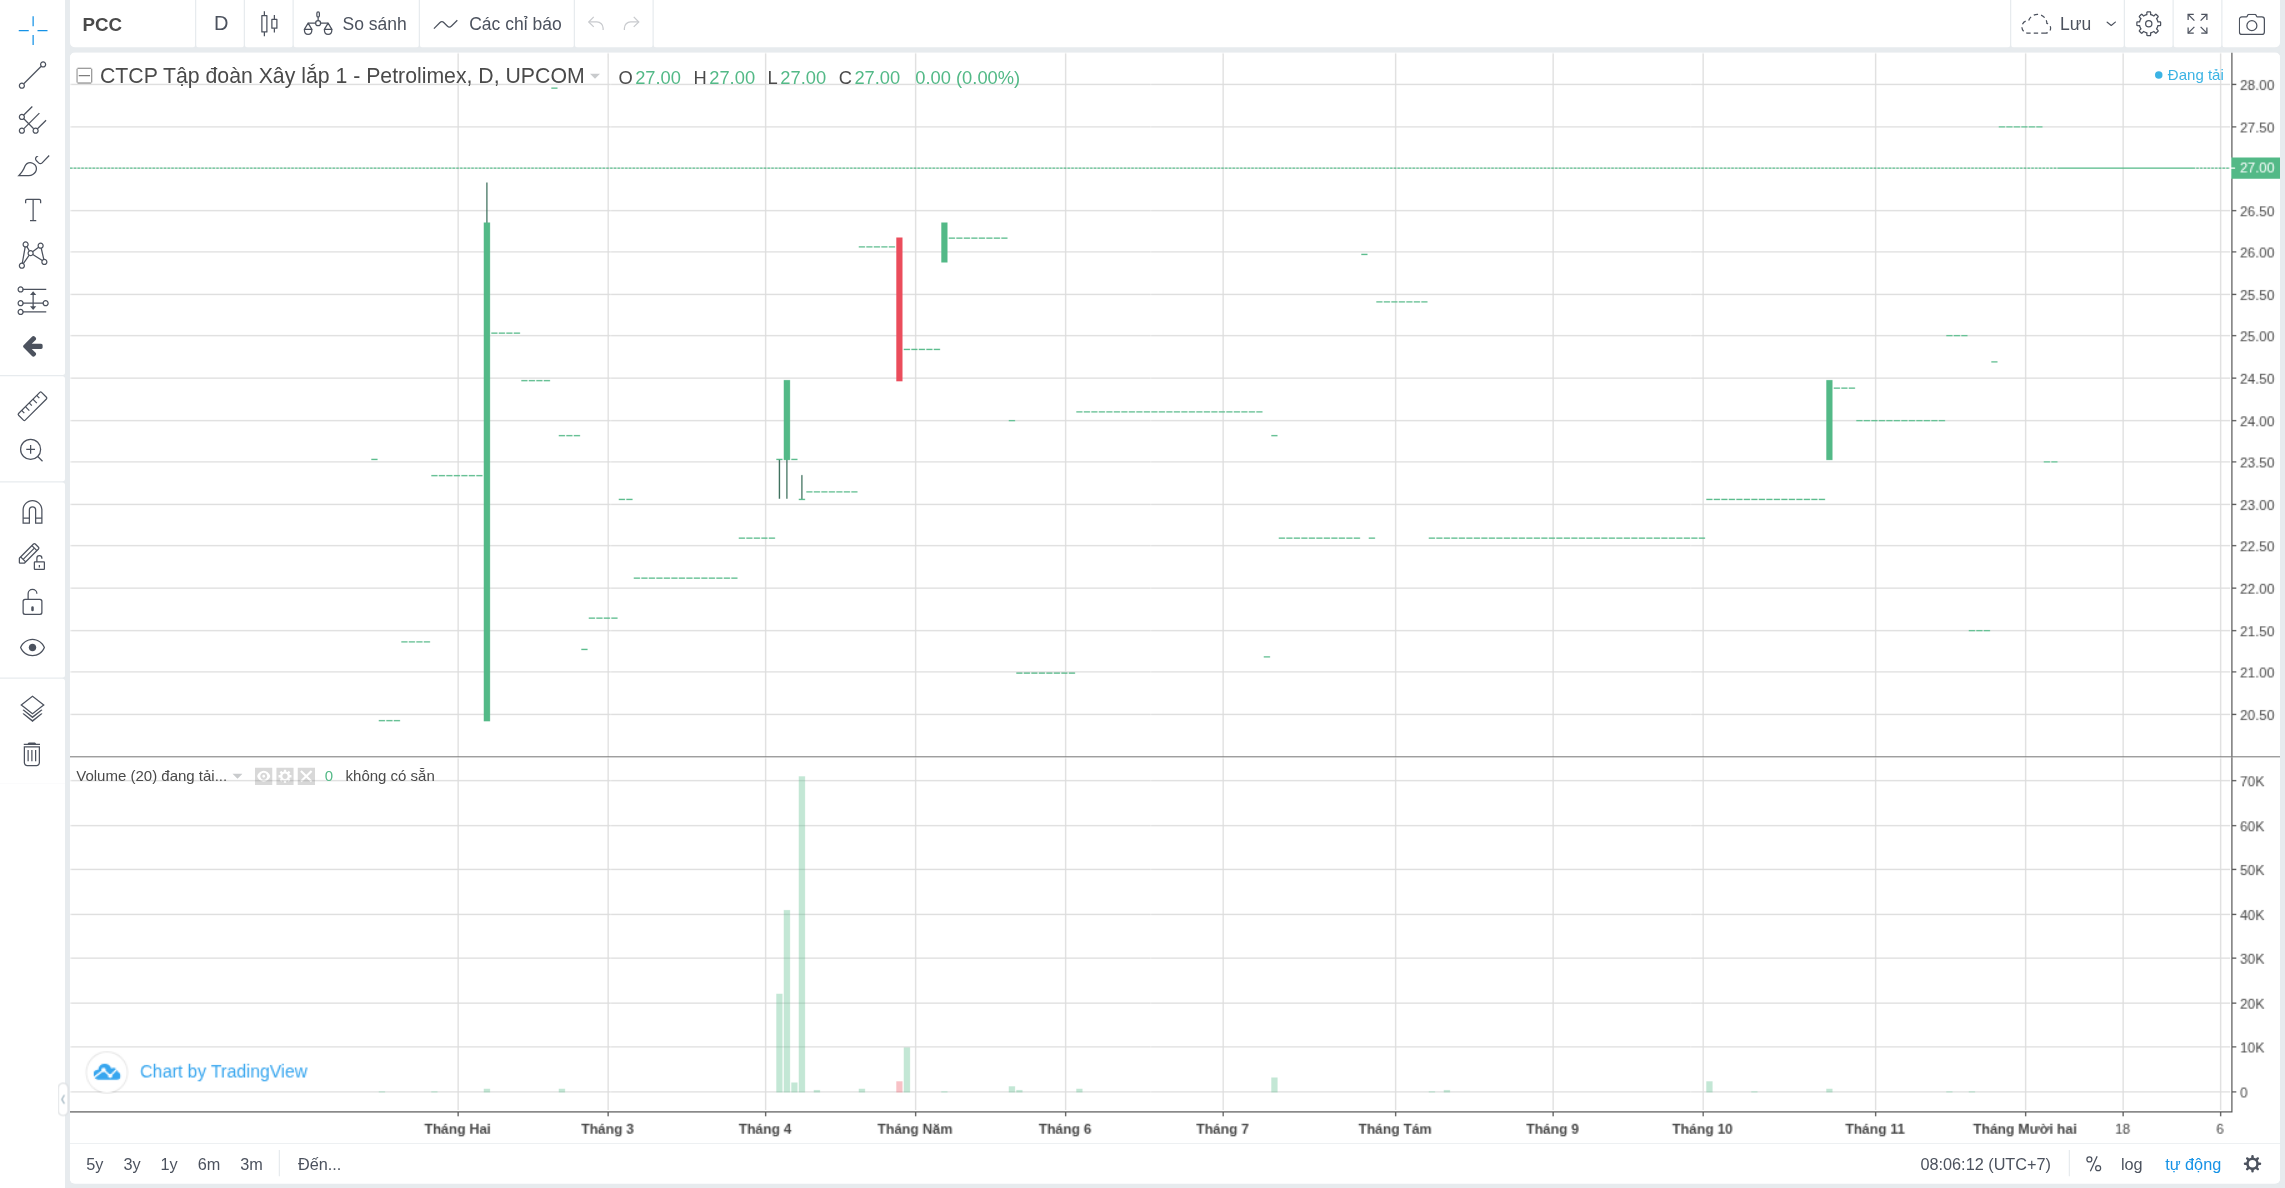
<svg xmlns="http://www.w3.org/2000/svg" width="2285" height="1188">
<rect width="100%" height="100%" fill="#fff"/>
<image x="0" y="0" width="2285" height="1188" href="media/1.png"/>
</svg>
